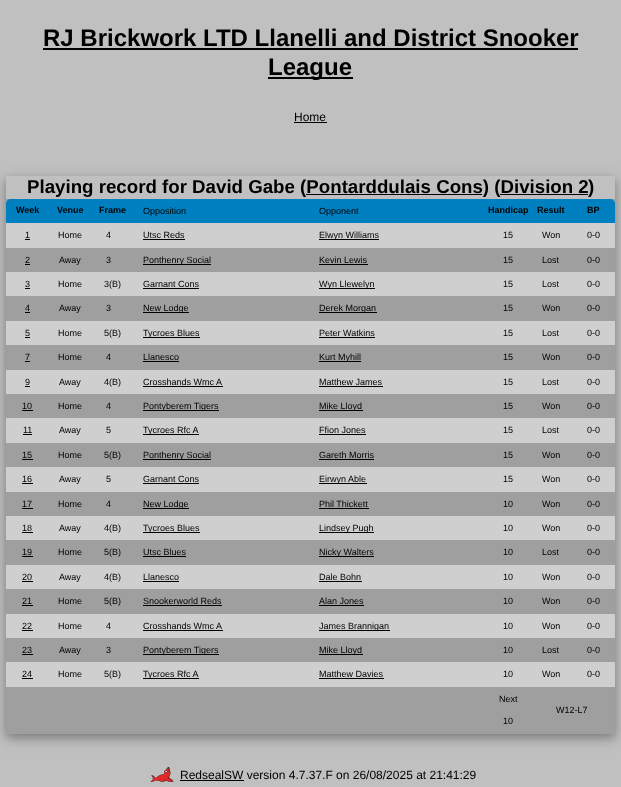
<svg xmlns="http://www.w3.org/2000/svg" width="621" height="787">
<defs>
<clipPath id="clip1"><path d="M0 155h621v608h-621zm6 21h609v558h-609z" clip-rule="evenodd"/></clipPath>
<clipPath id="clip2"><path d="M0 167h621v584h-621zm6 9h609v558h-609z" clip-rule="evenodd"/></clipPath>
</defs>
<rect width="100%" height="100%" fill="#c0c0c0"/>
<text x="43" y="46" style="font-family:Liberation Sans;font-size:24px;font-weight:bold;fill:#000">RJ Brickwork LTD Llanelli and District Snooker</text>
<rect x="43" y="48" width="535" height="2" fill="#000"/>
<rect x="268" y="77" width="85" height="2" fill="#000"/>
<text x="268" y="75" style="font-family:Liberation Sans;font-size:24px;font-weight:bold;fill:#000">League</text>
<text x="294" y="121" style="font-family:Liberation Sans;font-size:12px;fill:#000">Home</text>
<rect x="294" y="122" width="33" height="1" fill="#000"/>
<g clip-path="url(#clip1)">
<rect x="6" y="180" width="609" height="558" fill="#0000002e" filter="blur(8px)"/>
</g>
<g clip-path="url(#clip2)">
<rect x="6" y="180" width="609" height="558" fill="#00000036" filter="blur(4px)"/>
</g>
<text x="27" y="193" style="font-family:Liberation Sans;font-size:18.7px;font-weight:bold;fill:#000">Playing record for David Gabe (Pontarddulais Cons) (Division 2</text>
<rect x="500" y="194" width="88" height="1" fill="#000"/>
<text x="588" y="193" style="font-family:Liberation Sans;font-size:18.7px;font-weight:bold;fill:#000">)</text>
<rect x="306" y="194" width="176" height="1" fill="#000"/>
<rect x="6" y="199" width="609" height="5" fill="#9f9f9f"/>
<path d="M11 199h38v24h-43v-19c0-3 2-5 5-5z" fill="#0080c0"/>
<text x="16" y="213" style="font-family:Liberation Sans;font-size:9px;font-weight:bold;fill:#000">Week</text>
<rect x="49" y="199" width="523" height="24" fill="#0080c0"/>
<text x="57" y="213" style="font-family:Liberation Sans;font-size:9px;font-weight:bold;fill:#000">Venue</text>
<text x="99" y="213" style="font-family:Liberation Sans;font-size:9px;font-weight:bold;fill:#000">Frame</text>
<text x="143" y="214" style="font-family:Liberation Sans;font-size:9px;fill:#000">Opposition</text>
<text x="319" y="214" style="font-family:Liberation Sans;font-size:9px;fill:#000">Opponent</text>
<text x="488" y="213" style="font-family:Liberation Sans;font-size:9px;font-weight:bold;fill:#000">Handicap</text>
<text x="537" y="213" style="font-family:Liberation Sans;font-size:9px;font-weight:bold;fill:#000">Result</text>
<path d="M572 199h38c3 0 5 2 5 5v19h-43z" fill="#0080c0"/>
<text x="587" y="213" style="font-family:Liberation Sans;font-size:9px;font-weight:bold;fill:#000">BP</text>
<rect x="6" y="223" width="609" height="25" fill="#cfcfcf"/>
<text x="25" y="238" style="font-family:Liberation Sans;font-size:9px;fill:#000">1</text>
<rect x="25" y="239" width="5" height="1" fill="#000"/>
<text x="58" y="238" style="font-family:Liberation Sans;font-size:9px;fill:#000">Home</text>
<text x="106" y="238" style="font-family:Liberation Sans;font-size:9px;fill:#000">4</text>
<text x="143" y="238" style="font-family:Liberation Sans;font-size:9px;fill:#000">Utsc Reds</text>
<rect x="143" y="239" width="42" height="1" fill="#000"/>
<rect x="319" y="239" width="60" height="1" fill="#000"/>
<text x="319" y="238" style="font-family:Liberation Sans;font-size:9px;fill:#000">Elwyn Williams</text>
<text x="503" y="238" style="font-family:Liberation Sans;font-size:9px;fill:#000">15</text>
<text x="542" y="238" style="font-family:Liberation Sans;font-size:9px;fill:#000">Won</text>
<text x="587" y="238" style="font-family:Liberation Sans;font-size:9px;fill:#000">0-0</text>
<rect x="6" y="248" width="609" height="24" fill="#9f9f9f"/>
<text x="25" y="263" style="font-family:Liberation Sans;font-size:9px;fill:#000">2</text>
<rect x="25" y="264" width="5" height="1" fill="#000"/>
<text x="59" y="263" style="font-family:Liberation Sans;font-size:9px;fill:#000">Away</text>
<text x="106" y="263" style="font-family:Liberation Sans;font-size:9px;fill:#000">3</text>
<rect x="143" y="264" width="68" height="1" fill="#000"/>
<text x="143" y="263" style="font-family:Liberation Sans;font-size:9px;fill:#000">Ponthenry Social</text>
<text x="319" y="263" style="font-family:Liberation Sans;font-size:9px;fill:#000">Kevin Lewis</text>
<rect x="319" y="264" width="49" height="1" fill="#000"/>
<text x="503" y="263" style="font-family:Liberation Sans;font-size:9px;fill:#000">15</text>
<text x="542" y="263" style="font-family:Liberation Sans;font-size:9px;fill:#000">Lost</text>
<text x="587" y="263" style="font-family:Liberation Sans;font-size:9px;fill:#000">0-0</text>
<rect x="6" y="272" width="609" height="24" fill="#cfcfcf"/>
<text x="25" y="287" style="font-family:Liberation Sans;font-size:9px;fill:#000">3</text>
<rect x="25" y="288" width="5" height="1" fill="#000"/>
<text x="58" y="287" style="font-family:Liberation Sans;font-size:9px;fill:#000">Home</text>
<text x="104" y="287" style="font-family:Liberation Sans;font-size:9px;fill:#000">3(B)</text>
<text x="143" y="287" style="font-family:Liberation Sans;font-size:9px;fill:#000">Garnant Cons</text>
<rect x="143" y="288" width="56" height="1" fill="#000"/>
<rect x="319" y="288" width="56" height="1" fill="#000"/>
<text x="319" y="287" style="font-family:Liberation Sans;font-size:9px;fill:#000">Wyn Llewelyn</text>
<text x="503" y="287" style="font-family:Liberation Sans;font-size:9px;fill:#000">15</text>
<text x="542" y="287" style="font-family:Liberation Sans;font-size:9px;fill:#000">Lost</text>
<text x="587" y="287" style="font-family:Liberation Sans;font-size:9px;fill:#000">0-0</text>
<rect x="6" y="296" width="609" height="25" fill="#9f9f9f"/>
<text x="25" y="311" style="font-family:Liberation Sans;font-size:9px;fill:#000">4</text>
<rect x="25" y="312" width="5" height="1" fill="#000"/>
<text x="59" y="311" style="font-family:Liberation Sans;font-size:9px;fill:#000">Away</text>
<text x="106" y="311" style="font-family:Liberation Sans;font-size:9px;fill:#000">3</text>
<rect x="143" y="312" width="46" height="1" fill="#000"/>
<text x="143" y="311" style="font-family:Liberation Sans;font-size:9px;fill:#000">New Lodge</text>
<rect x="319" y="312" width="58" height="1" fill="#000"/>
<text x="319" y="311" style="font-family:Liberation Sans;font-size:9px;fill:#000">Derek Morgan</text>
<text x="503" y="311" style="font-family:Liberation Sans;font-size:9px;fill:#000">15</text>
<text x="542" y="311" style="font-family:Liberation Sans;font-size:9px;fill:#000">Won</text>
<text x="587" y="311" style="font-family:Liberation Sans;font-size:9px;fill:#000">0-0</text>
<rect x="6" y="321" width="609" height="24" fill="#cfcfcf"/>
<text x="25" y="336" style="font-family:Liberation Sans;font-size:9px;fill:#000">5</text>
<rect x="25" y="337" width="5" height="1" fill="#000"/>
<text x="58" y="336" style="font-family:Liberation Sans;font-size:9px;fill:#000">Home</text>
<text x="104" y="336" style="font-family:Liberation Sans;font-size:9px;fill:#000">5(B)</text>
<rect x="143" y="337" width="57" height="1" fill="#000"/>
<text x="143" y="336" style="font-family:Liberation Sans;font-size:9px;fill:#000">Tycroes Blues</text>
<text x="319" y="336" style="font-family:Liberation Sans;font-size:9px;fill:#000">Peter Watkins</text>
<rect x="319" y="337" width="56" height="1" fill="#000"/>
<text x="503" y="336" style="font-family:Liberation Sans;font-size:9px;fill:#000">15</text>
<text x="542" y="336" style="font-family:Liberation Sans;font-size:9px;fill:#000">Lost</text>
<text x="587" y="336" style="font-family:Liberation Sans;font-size:9px;fill:#000">0-0</text>
<rect x="6" y="345" width="609" height="25" fill="#9f9f9f"/>
<text x="25" y="360" style="font-family:Liberation Sans;font-size:9px;fill:#000">7</text>
<rect x="25" y="361" width="5" height="1" fill="#000"/>
<text x="58" y="360" style="font-family:Liberation Sans;font-size:9px;fill:#000">Home</text>
<text x="106" y="360" style="font-family:Liberation Sans;font-size:9px;fill:#000">4</text>
<text x="143" y="360" style="font-family:Liberation Sans;font-size:9px;fill:#000">Llanesco</text>
<rect x="143" y="361" width="36" height="1" fill="#000"/>
<rect x="319" y="361" width="42" height="1" fill="#000"/>
<text x="319" y="360" style="font-family:Liberation Sans;font-size:9px;fill:#000">Kurt Myhill</text>
<text x="503" y="360" style="font-family:Liberation Sans;font-size:9px;fill:#000">15</text>
<text x="542" y="360" style="font-family:Liberation Sans;font-size:9px;fill:#000">Won</text>
<text x="587" y="360" style="font-family:Liberation Sans;font-size:9px;fill:#000">0-0</text>
<rect x="6" y="370" width="609" height="24" fill="#cfcfcf"/>
<text x="25" y="385" style="font-family:Liberation Sans;font-size:9px;fill:#000">9</text>
<rect x="25" y="386" width="5" height="1" fill="#000"/>
<text x="59" y="385" style="font-family:Liberation Sans;font-size:9px;fill:#000">Away</text>
<text x="104" y="385" style="font-family:Liberation Sans;font-size:9px;fill:#000">4(B)</text>
<text x="143" y="385" style="font-family:Liberation Sans;font-size:9px;fill:#000">Crosshands Wmc A</text>
<rect x="143" y="386" width="80" height="1" fill="#000"/>
<text x="319" y="385" style="font-family:Liberation Sans;font-size:9px;fill:#000">Matthew James</text>
<rect x="319" y="386" width="64" height="1" fill="#000"/>
<text x="503" y="385" style="font-family:Liberation Sans;font-size:9px;fill:#000">15</text>
<text x="542" y="385" style="font-family:Liberation Sans;font-size:9px;fill:#000">Lost</text>
<text x="587" y="385" style="font-family:Liberation Sans;font-size:9px;fill:#000">0-0</text>
<rect x="6" y="394" width="609" height="24" fill="#9f9f9f"/>
<text x="22" y="409" style="font-family:Liberation Sans;font-size:9px;fill:#000">10</text>
<rect x="22" y="410" width="11" height="1" fill="#000"/>
<text x="58" y="409" style="font-family:Liberation Sans;font-size:9px;fill:#000">Home</text>
<text x="106" y="409" style="font-family:Liberation Sans;font-size:9px;fill:#000">4</text>
<rect x="143" y="410" width="76" height="1" fill="#000"/>
<text x="143" y="409" style="font-family:Liberation Sans;font-size:9px;fill:#000">Pontyberem Tigers</text>
<rect x="319" y="410" width="44" height="1" fill="#000"/>
<text x="319" y="409" style="font-family:Liberation Sans;font-size:9px;fill:#000">Mike Lloyd</text>
<text x="503" y="409" style="font-family:Liberation Sans;font-size:9px;fill:#000">15</text>
<text x="542" y="409" style="font-family:Liberation Sans;font-size:9px;fill:#000">Won</text>
<text x="587" y="409" style="font-family:Liberation Sans;font-size:9px;fill:#000">0-0</text>
<rect x="6" y="418" width="609" height="25" fill="#cfcfcf"/>
<text x="23" y="433" style="font-family:Liberation Sans;font-size:9px;fill:#000">11</text>
<rect x="23" y="434" width="9" height="1" fill="#000"/>
<text x="59" y="433" style="font-family:Liberation Sans;font-size:9px;fill:#000">Away</text>
<text x="106" y="433" style="font-family:Liberation Sans;font-size:9px;fill:#000">5</text>
<rect x="143" y="434" width="56" height="1" fill="#000"/>
<text x="143" y="433" style="font-family:Liberation Sans;font-size:9px;fill:#000">Tycroes Rfc A</text>
<text x="319" y="433" style="font-family:Liberation Sans;font-size:9px;fill:#000">Ffion Jones</text>
<rect x="319" y="434" width="47" height="1" fill="#000"/>
<text x="503" y="433" style="font-family:Liberation Sans;font-size:9px;fill:#000">15</text>
<text x="542" y="433" style="font-family:Liberation Sans;font-size:9px;fill:#000">Lost</text>
<text x="587" y="433" style="font-family:Liberation Sans;font-size:9px;fill:#000">0-0</text>
<rect x="6" y="443" width="609" height="24" fill="#9f9f9f"/>
<text x="22" y="458" style="font-family:Liberation Sans;font-size:9px;fill:#000">15</text>
<rect x="22" y="459" width="11" height="1" fill="#000"/>
<text x="58" y="458" style="font-family:Liberation Sans;font-size:9px;fill:#000">Home</text>
<text x="104" y="458" style="font-family:Liberation Sans;font-size:9px;fill:#000">5(B)</text>
<rect x="143" y="459" width="68" height="1" fill="#000"/>
<text x="143" y="458" style="font-family:Liberation Sans;font-size:9px;fill:#000">Ponthenry Social</text>
<text x="319" y="458" style="font-family:Liberation Sans;font-size:9px;fill:#000">Gareth Morris</text>
<rect x="319" y="459" width="55" height="1" fill="#000"/>
<text x="503" y="458" style="font-family:Liberation Sans;font-size:9px;fill:#000">15</text>
<text x="542" y="458" style="font-family:Liberation Sans;font-size:9px;fill:#000">Won</text>
<text x="587" y="458" style="font-family:Liberation Sans;font-size:9px;fill:#000">0-0</text>
<rect x="6" y="467" width="609" height="25" fill="#cfcfcf"/>
<text x="22" y="482" style="font-family:Liberation Sans;font-size:9px;fill:#000">16</text>
<rect x="22" y="483" width="11" height="1" fill="#000"/>
<text x="59" y="482" style="font-family:Liberation Sans;font-size:9px;fill:#000">Away</text>
<text x="106" y="482" style="font-family:Liberation Sans;font-size:9px;fill:#000">5</text>
<text x="143" y="482" style="font-family:Liberation Sans;font-size:9px;fill:#000">Garnant Cons</text>
<rect x="143" y="483" width="56" height="1" fill="#000"/>
<rect x="319" y="483" width="48" height="1" fill="#000"/>
<text x="319" y="482" style="font-family:Liberation Sans;font-size:9px;fill:#000">Eirwyn Able</text>
<text x="503" y="482" style="font-family:Liberation Sans;font-size:9px;fill:#000">15</text>
<text x="542" y="482" style="font-family:Liberation Sans;font-size:9px;fill:#000">Won</text>
<text x="587" y="482" style="font-family:Liberation Sans;font-size:9px;fill:#000">0-0</text>
<rect x="6" y="492" width="609" height="24" fill="#9f9f9f"/>
<text x="22" y="507" style="font-family:Liberation Sans;font-size:9px;fill:#000">17</text>
<rect x="22" y="508" width="11" height="1" fill="#000"/>
<text x="58" y="507" style="font-family:Liberation Sans;font-size:9px;fill:#000">Home</text>
<text x="106" y="507" style="font-family:Liberation Sans;font-size:9px;fill:#000">4</text>
<rect x="143" y="508" width="46" height="1" fill="#000"/>
<text x="143" y="507" style="font-family:Liberation Sans;font-size:9px;fill:#000">New Lodge</text>
<text x="319" y="507" style="font-family:Liberation Sans;font-size:9px;fill:#000">Phil Thickett</text>
<rect x="319" y="508" width="50" height="1" fill="#000"/>
<text x="503" y="507" style="font-family:Liberation Sans;font-size:9px;fill:#000">10</text>
<text x="542" y="507" style="font-family:Liberation Sans;font-size:9px;fill:#000">Won</text>
<text x="587" y="507" style="font-family:Liberation Sans;font-size:9px;fill:#000">0-0</text>
<rect x="6" y="516" width="609" height="24" fill="#cfcfcf"/>
<text x="22" y="531" style="font-family:Liberation Sans;font-size:9px;fill:#000">18</text>
<rect x="22" y="532" width="11" height="1" fill="#000"/>
<text x="59" y="531" style="font-family:Liberation Sans;font-size:9px;fill:#000">Away</text>
<text x="104" y="531" style="font-family:Liberation Sans;font-size:9px;fill:#000">4(B)</text>
<rect x="143" y="532" width="57" height="1" fill="#000"/>
<text x="143" y="531" style="font-family:Liberation Sans;font-size:9px;fill:#000">Tycroes Blues</text>
<rect x="319" y="532" width="55" height="1" fill="#000"/>
<text x="319" y="531" style="font-family:Liberation Sans;font-size:9px;fill:#000">Lindsey Pugh</text>
<text x="503" y="531" style="font-family:Liberation Sans;font-size:9px;fill:#000">10</text>
<text x="542" y="531" style="font-family:Liberation Sans;font-size:9px;fill:#000">Won</text>
<text x="587" y="531" style="font-family:Liberation Sans;font-size:9px;fill:#000">0-0</text>
<rect x="6" y="540" width="609" height="25" fill="#9f9f9f"/>
<text x="22" y="555" style="font-family:Liberation Sans;font-size:9px;fill:#000">19</text>
<rect x="22" y="556" width="11" height="1" fill="#000"/>
<text x="58" y="555" style="font-family:Liberation Sans;font-size:9px;fill:#000">Home</text>
<text x="104" y="555" style="font-family:Liberation Sans;font-size:9px;fill:#000">5(B)</text>
<text x="143" y="555" style="font-family:Liberation Sans;font-size:9px;fill:#000">Utsc Blues</text>
<rect x="143" y="556" width="43" height="1" fill="#000"/>
<rect x="319" y="556" width="55" height="1" fill="#000"/>
<text x="319" y="555" style="font-family:Liberation Sans;font-size:9px;fill:#000">Nicky Walters</text>
<text x="503" y="555" style="font-family:Liberation Sans;font-size:9px;fill:#000">10</text>
<text x="542" y="555" style="font-family:Liberation Sans;font-size:9px;fill:#000">Lost</text>
<text x="587" y="555" style="font-family:Liberation Sans;font-size:9px;fill:#000">0-0</text>
<rect x="6" y="565" width="609" height="24" fill="#cfcfcf"/>
<text x="22" y="580" style="font-family:Liberation Sans;font-size:9px;fill:#000">20</text>
<rect x="22" y="581" width="11" height="1" fill="#000"/>
<text x="59" y="580" style="font-family:Liberation Sans;font-size:9px;fill:#000">Away</text>
<text x="104" y="580" style="font-family:Liberation Sans;font-size:9px;fill:#000">4(B)</text>
<text x="143" y="580" style="font-family:Liberation Sans;font-size:9px;fill:#000">Llanesco</text>
<rect x="143" y="581" width="36" height="1" fill="#000"/>
<text x="319" y="580" style="font-family:Liberation Sans;font-size:9px;fill:#000">Dale Bohn</text>
<rect x="319" y="581" width="43" height="1" fill="#000"/>
<text x="503" y="580" style="font-family:Liberation Sans;font-size:9px;fill:#000">10</text>
<text x="542" y="580" style="font-family:Liberation Sans;font-size:9px;fill:#000">Won</text>
<text x="587" y="580" style="font-family:Liberation Sans;font-size:9px;fill:#000">0-0</text>
<rect x="6" y="589" width="609" height="25" fill="#9f9f9f"/>
<text x="22" y="604" style="font-family:Liberation Sans;font-size:9px;fill:#000">21</text>
<rect x="22" y="605" width="11" height="1" fill="#000"/>
<text x="58" y="604" style="font-family:Liberation Sans;font-size:9px;fill:#000">Home</text>
<text x="104" y="604" style="font-family:Liberation Sans;font-size:9px;fill:#000">5(B)</text>
<text x="143" y="604" style="font-family:Liberation Sans;font-size:9px;fill:#000">Snookerworld Reds</text>
<rect x="143" y="605" width="79" height="1" fill="#000"/>
<text x="319" y="604" style="font-family:Liberation Sans;font-size:9px;fill:#000">Alan Jones</text>
<rect x="319" y="605" width="45" height="1" fill="#000"/>
<text x="503" y="604" style="font-family:Liberation Sans;font-size:9px;fill:#000">10</text>
<text x="542" y="604" style="font-family:Liberation Sans;font-size:9px;fill:#000">Won</text>
<text x="587" y="604" style="font-family:Liberation Sans;font-size:9px;fill:#000">0-0</text>
<rect x="6" y="614" width="609" height="24" fill="#cfcfcf"/>
<text x="22" y="629" style="font-family:Liberation Sans;font-size:9px;fill:#000">22</text>
<rect x="22" y="630" width="11" height="1" fill="#000"/>
<text x="58" y="629" style="font-family:Liberation Sans;font-size:9px;fill:#000">Home</text>
<text x="106" y="629" style="font-family:Liberation Sans;font-size:9px;fill:#000">4</text>
<text x="143" y="629" style="font-family:Liberation Sans;font-size:9px;fill:#000">Crosshands Wmc A</text>
<rect x="143" y="630" width="80" height="1" fill="#000"/>
<rect x="319" y="630" width="71" height="1" fill="#000"/>
<text x="319" y="629" style="font-family:Liberation Sans;font-size:9px;fill:#000">James Brannigan</text>
<text x="503" y="629" style="font-family:Liberation Sans;font-size:9px;fill:#000">10</text>
<text x="542" y="629" style="font-family:Liberation Sans;font-size:9px;fill:#000">Won</text>
<text x="587" y="629" style="font-family:Liberation Sans;font-size:9px;fill:#000">0-0</text>
<rect x="6" y="638" width="609" height="24" fill="#9f9f9f"/>
<text x="22" y="653" style="font-family:Liberation Sans;font-size:9px;fill:#000">23</text>
<rect x="22" y="654" width="11" height="1" fill="#000"/>
<text x="59" y="653" style="font-family:Liberation Sans;font-size:9px;fill:#000">Away</text>
<text x="106" y="653" style="font-family:Liberation Sans;font-size:9px;fill:#000">3</text>
<rect x="143" y="654" width="76" height="1" fill="#000"/>
<text x="143" y="653" style="font-family:Liberation Sans;font-size:9px;fill:#000">Pontyberem Tigers</text>
<rect x="319" y="654" width="44" height="1" fill="#000"/>
<text x="319" y="653" style="font-family:Liberation Sans;font-size:9px;fill:#000">Mike Lloyd</text>
<text x="503" y="653" style="font-family:Liberation Sans;font-size:9px;fill:#000">10</text>
<text x="542" y="653" style="font-family:Liberation Sans;font-size:9px;fill:#000">Lost</text>
<text x="587" y="653" style="font-family:Liberation Sans;font-size:9px;fill:#000">0-0</text>
<rect x="6" y="662" width="609" height="25" fill="#cfcfcf"/>
<text x="22" y="677" style="font-family:Liberation Sans;font-size:9px;fill:#000">24</text>
<rect x="22" y="678" width="11" height="1" fill="#000"/>
<text x="58" y="677" style="font-family:Liberation Sans;font-size:9px;fill:#000">Home</text>
<text x="104" y="677" style="font-family:Liberation Sans;font-size:9px;fill:#000">5(B)</text>
<rect x="143" y="678" width="56" height="1" fill="#000"/>
<text x="143" y="677" style="font-family:Liberation Sans;font-size:9px;fill:#000">Tycroes Rfc A</text>
<text x="319" y="677" style="font-family:Liberation Sans;font-size:9px;fill:#000">Matthew Davies</text>
<rect x="319" y="678" width="65" height="1" fill="#000"/>
<text x="503" y="677" style="font-family:Liberation Sans;font-size:9px;fill:#000">10</text>
<text x="542" y="677" style="font-family:Liberation Sans;font-size:9px;fill:#000">Won</text>
<text x="587" y="677" style="font-family:Liberation Sans;font-size:9px;fill:#000">0-0</text>
<rect x="6" y="687" width="609" height="47" fill="#9f9f9f"/>
<text x="499" y="702" style="font-family:Liberation Sans;font-size:9px;fill:#000">Next</text>
<text x="503" y="724" style="font-family:Liberation Sans;font-size:9px;fill:#000">10</text>
<text x="556" y="713" style="font-family:Liberation Sans;font-size:9px;fill:#000">W12-L7</text>
<image x="150" y="767" width="24" height="15" href="media/1.png"/>
<text x="180" y="779" style="font-family:Liberation Sans;font-size:12px;fill:#000">RedsealSW version 4.7.37.F on 26/08/2025 at 21:41:29</text>
<rect x="180" y="780" width="64" height="1" fill="#000"/>
</svg>
